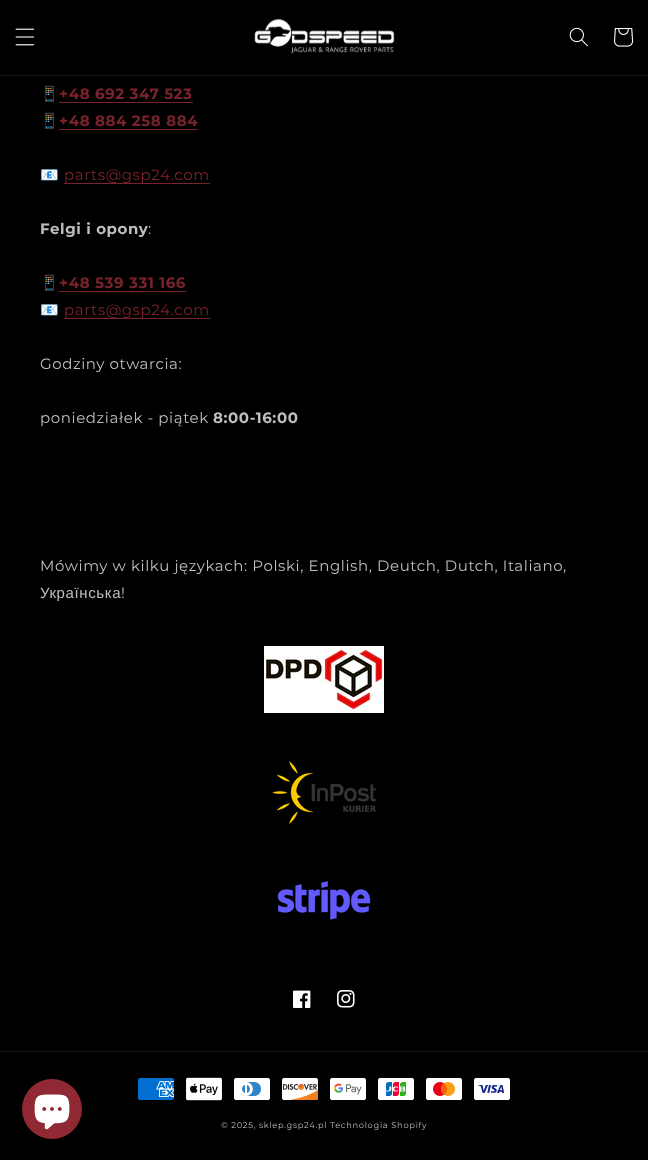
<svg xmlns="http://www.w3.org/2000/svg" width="648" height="1160">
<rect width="100%" height="100%" fill="#000"/>
<rect y="75" width="648" height="1" fill="#141414"/>
<image x="15" y="28" width="20" height="18" href="media/1.png"/>
<image x="254" y="18" width="141" height="36" href="media/2.png"/>
<image x="569" y="27" width="19" height="20" href="media/3.png"/>
<image x="614" y="28" width="20" height="19" href="media/4.png"/>
<text x="40" y="99" style="font-family:Noto Color Emoji;font-size:15px;letter-spacing:0.6px;fill:#bfbfbf">📱</text>
<text x="59" y="99" style="font-family:Montserrat;font-size:15px;font-weight:bold;letter-spacing:0.6px;fill:#7b232c">+48 692 347 523</text>
<rect x="59" y="102" width="134" height="1" fill="#7b232c"/>
<text x="40" y="126" style="font-family:Noto Color Emoji;font-size:15px;letter-spacing:0.6px;fill:#bfbfbf">📱</text>
<text x="59" y="126" style="font-family:Montserrat;font-size:15px;font-weight:bold;letter-spacing:0.6px;fill:#7b232c">+48 884 258 884</text>
<rect x="59" y="129" width="139" height="1" fill="#7b232c"/>
<text x="40" y="180" style="font-family:Noto Color Emoji;font-size:15px;letter-spacing:0.6px;fill:#bfbfbf">📧</text>
<text x="64" y="180" style="font-family:Montserrat;font-size:15px;letter-spacing:0.6px;fill:#7b232c">parts@gsp24.com</text>
<rect x="64" y="183" width="146" height="1" fill="#7b232c"/>
<text x="40" y="234" style="font-family:Montserrat;font-size:15px;font-weight:bold;letter-spacing:0.6px;fill:#bfbfbf">Felgi i opony</text>
<text x="148" y="234" style="font-family:Montserrat;font-size:15px;letter-spacing:0.6px;fill:#bfbfbf">:</text>
<text x="40" y="288" style="font-family:Noto Color Emoji;font-size:15px;letter-spacing:0.6px;fill:#bfbfbf">📱</text>
<text x="59" y="288" style="font-family:Montserrat;font-size:15px;font-weight:bold;letter-spacing:0.6px;fill:#7b232c">+48 539 331 166</text>
<rect x="59" y="291" width="127" height="1" fill="#7b232c"/>
<text x="40" y="315" style="font-family:Noto Color Emoji;font-size:15px;letter-spacing:0.6px;fill:#bfbfbf">📧</text>
<text x="64" y="315" style="font-family:Montserrat;font-size:15px;letter-spacing:0.6px;fill:#7b232c">parts@gsp24.com</text>
<rect x="64" y="318" width="146" height="1" fill="#7b232c"/>
<text x="40" y="369" style="font-family:Montserrat;font-size:15px;letter-spacing:0.6px;fill:#bfbfbf">Godziny otwarcia:</text>
<text x="40" y="423" style="font-family:Montserrat;font-size:15px;letter-spacing:0.6px;fill:#bfbfbf">poniedziałek - piątek</text>
<text x="213" y="423" style="font-family:Montserrat;font-size:15px;font-weight:bold;letter-spacing:0.6px;fill:#bfbfbf">8:00-16:00</text>
<text x="40" y="571" style="font-family:Montserrat;font-size:15px;letter-spacing:0.6px;fill:#bfbfbf">Mówimy w kilku językach: Polski, English, Deutch, Dutch, Italiano,</text>
<text x="40" y="598" style="font-family:Liberation Sans;font-size:15px;letter-spacing:0.6px;fill:#bfbfbf">Українська</text>
<text x="121" y="598" style="font-family:Montserrat;font-size:15px;letter-spacing:0.6px;fill:#bfbfbf">!</text>
<image x="264" y="646" width="120" height="67" href="media/5.png"/>
<image x="272" y="761" width="104" height="63" href="media/6.png"/>
<image x="277" y="881" width="94" height="39" href="media/7.png"/>
<image x="293" y="990" width="18" height="18" href="media/8.png"/>
<image x="337" y="990" width="18" height="18" href="media/9.png"/>
<rect y="1051" width="648" height="1" fill="#141414"/>
<image x="138" y="1078" width="36" height="22" href="media/10.png"/>
<image x="186" y="1077" width="36" height="24" href="media/11.png"/>
<image x="234" y="1078" width="36" height="22" href="media/12.png"/>
<image x="282" y="1078" width="37" height="22" href="media/13.png"/>
<image x="330" y="1078" width="36" height="22" href="media/14.png"/>
<image x="378" y="1078" width="36" height="22" href="media/15.png"/>
<image x="426" y="1078" width="36" height="22" href="media/16.png"/>
<image x="474" y="1078" width="36" height="22" href="media/17.png"/>
<text x="221" y="1128" style="font-family:Montserrat;font-size:8.3px;letter-spacing:0.7px;fill:#bfbfbf">© 2025, sklep.gsp24.pl Technologia Shopify</text>
<circle cx="52" cy="1109" r="30" fill="#912934"/>
<image x="34" y="1094" width="36" height="36" href="media/18.png"/>
</svg>
